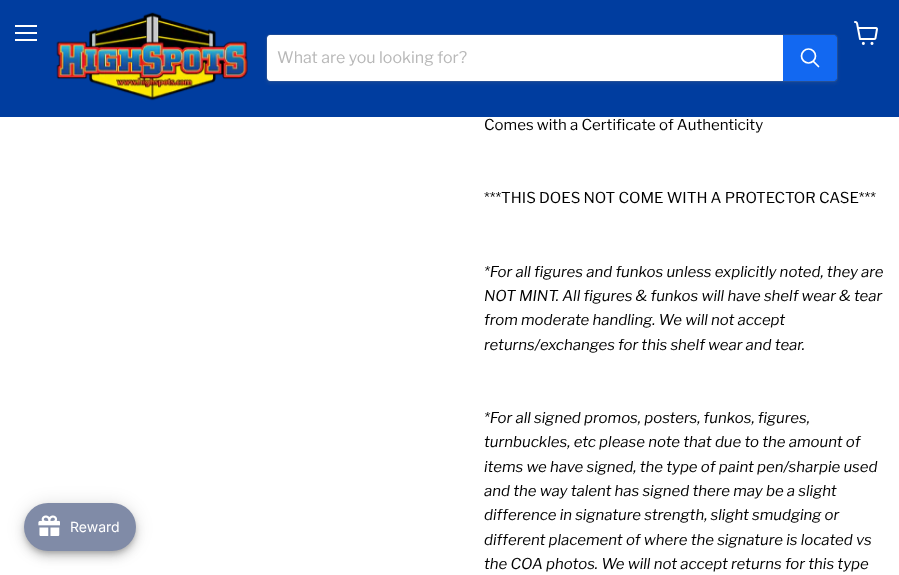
<svg xmlns="http://www.w3.org/2000/svg" width="899" height="575">
<rect width="100%" height="100%" fill="#fff"/>
<rect width="899" height="117" fill="#003d9f"/>
<rect x="15" y="25" width="22" height="2" fill="#fff"/>
<rect x="15" y="32" width="22" height="2" fill="#fff"/>
<rect x="15" y="39" width="22" height="2" fill="#fff"/>
<image x="854" y="21" width="24" height="24" href="media/1.png"/>
<image x="56" y="12" width="192" height="89" href="media/2.png"/>
<rect x="266" y="36" width="572" height="48" rx="4" fill="#8080801c" filter="blur(1.5px)"/>
<rect x="266.5" y="34.5" width="571" height="47" rx="3.5" fill="none" stroke="#80808033"/>
<path d="M270 35h513v46h-513c-1.5 0-3-1.5-3-3v-40c0-1.5 1.5-3 3-3z" fill="#fff"/>
<text x="277" y="63" style="font-family:Libre Franklin;font-size:16px;fill:#b8b8b8">What are you looking for?</text>
<path d="M783.5 35.5h50.5c1.5 0 2.5 1 2.5 2.5v40c0 1.5-1 2.5-2.5 2.5h-50.5z" fill="#1268f1" stroke="#1268f1"/>
<path d="M818.5 66.5l-5-5" fill="none" stroke="#fff" stroke-width="1.7" stroke-linecap="round"/>
<circle cx="808.5" cy="56" r="7" fill="none" stroke="#fff" stroke-width="1.7"/>
<rect x="24" y="504" width="112" height="48" rx="24" fill="#0000001f" filter="blur(9px)"/>
<rect x="24" y="509" width="112" height="48" rx="24" fill="#00000024" filter="blur(5px)"/>
<rect x="25" y="507" width="110" height="46" rx="23" fill="#00000033" filter="blur(2.5px)"/>
<rect x="24" y="503" width="112" height="48" rx="24" fill="#808ba7"/>
<image x="38" y="515" width="22" height="21" href="media/3.png"/>
<text x="70" y="532" style="font-family:Inter;font-size:14px;fill:#fff">Reward</text>
<text x="484" y="130" style="font-family:Libre Franklin;font-size:15px;fill:#000">Comes with a Certificate of Authenticity</text>
<text x="484" y="203" style="font-family:Libre Franklin;font-size:15px;fill:#000">***THIS DOES NOT COME WITH A PROTECTOR CASE***</text>
<text x="484" y="277" style="font-family:Libre Franklin;font-size:15px;font-style:italic;fill:#000">*For all figures and funkos unless explicitly noted, they are</text>
<text x="484" y="301" style="font-family:Libre Franklin;font-size:15px;font-style:italic;fill:#000">NOT MINT. All figures &amp; funkos will have shelf wear &amp; tear</text>
<text x="484" y="325" style="font-family:Libre Franklin;font-size:15px;font-style:italic;fill:#000">from moderate handling. We will not accept</text>
<text x="484" y="350" style="font-family:Libre Franklin;font-size:15px;font-style:italic;fill:#000">returns/exchanges for this shelf wear and tear.</text>
<text x="484" y="423" style="font-family:Libre Franklin;font-size:15px;font-style:italic;fill:#000">*For all signed promos, posters, funkos, figures,</text>
<text x="484" y="447" style="font-family:Libre Franklin;font-size:15px;font-style:italic;fill:#000">turnbuckles, etc please note that due to the amount of</text>
<text x="484" y="472" style="font-family:Libre Franklin;font-size:15px;font-style:italic;fill:#000">items we have signed, the type of paint pen/sharpie used</text>
<text x="484" y="496" style="font-family:Libre Franklin;font-size:15px;font-style:italic;fill:#000">and the way talent has signed there may be a slight</text>
<text x="484" y="520" style="font-family:Libre Franklin;font-size:15px;font-style:italic;fill:#000">difference in signature strength, slight smudging or</text>
<text x="484" y="545" style="font-family:Libre Franklin;font-size:15px;font-style:italic;fill:#000">different placement of where the signature is located vs</text>
<text x="484" y="569" style="font-family:Libre Franklin;font-size:15px;font-style:italic;fill:#000">the COA photos. We will not accept returns for this type</text>
</svg>
